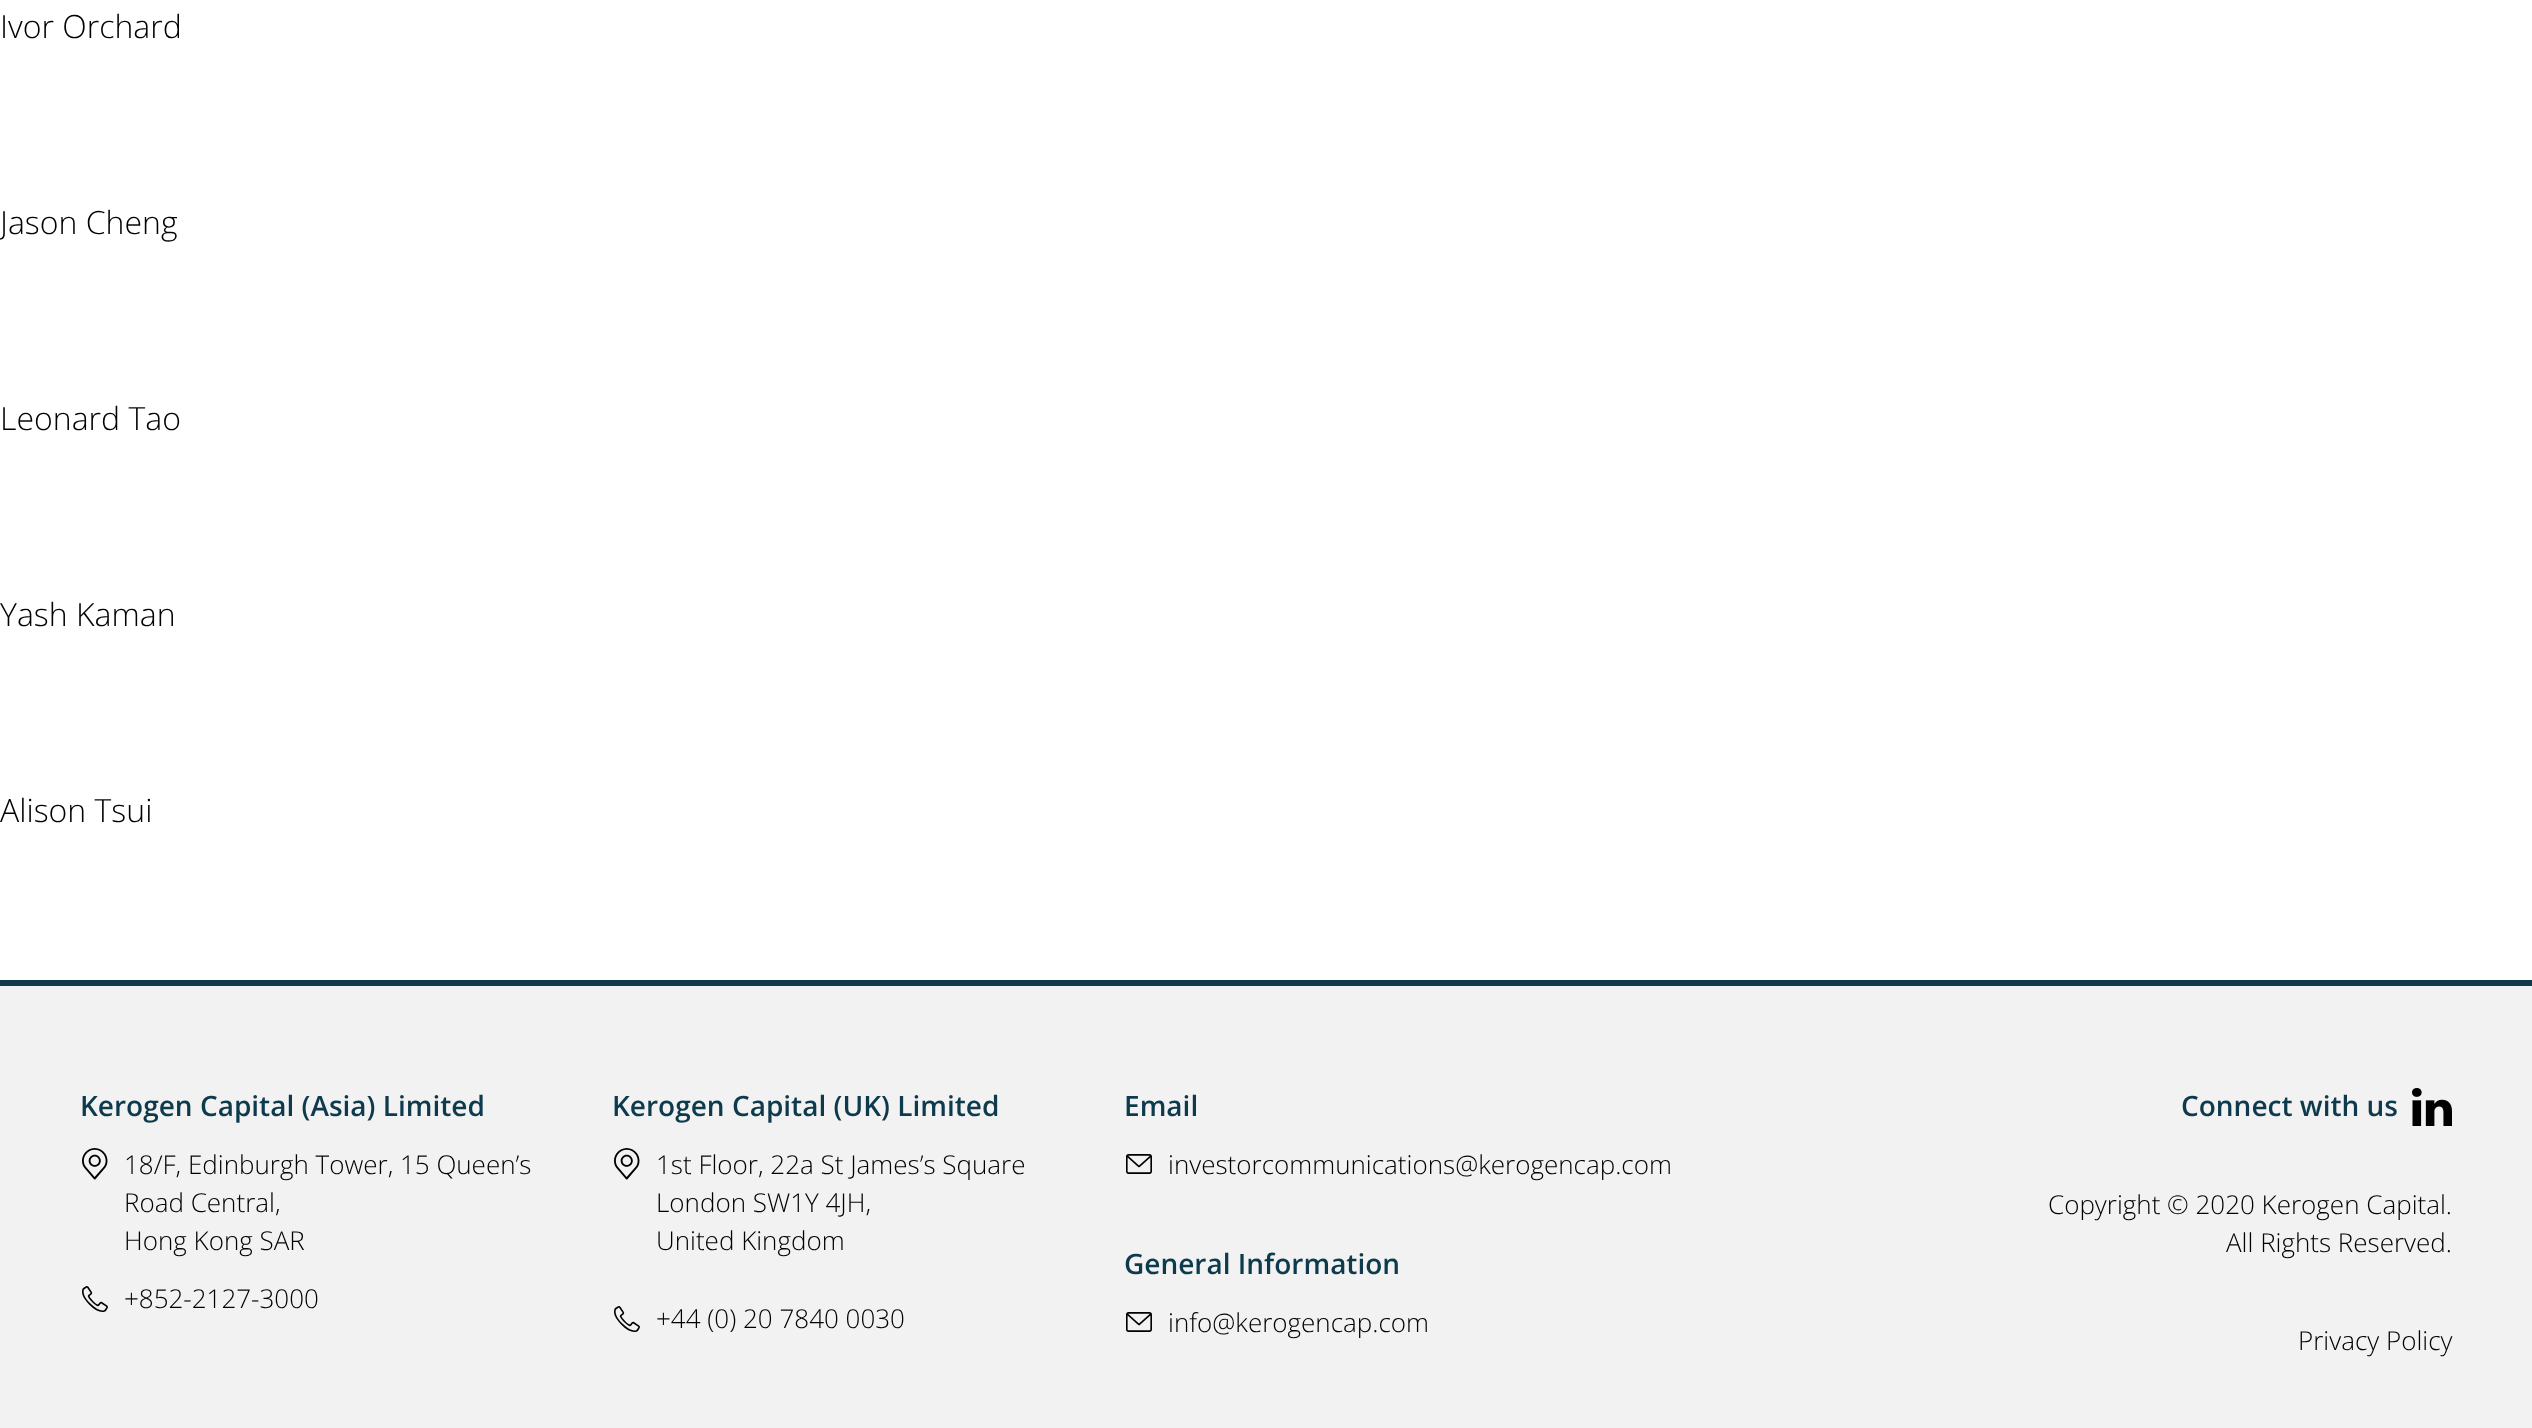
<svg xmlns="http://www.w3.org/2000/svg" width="2532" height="1428">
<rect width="100%" height="100%" fill="#fff"/>
<text x="0" y="38" style="font-family:Open Sans;font-size:32px;font-weight:300;fill:#000">Ivor Orchard</text>
<text x="0" y="234" style="font-family:Open Sans;font-size:32px;font-weight:300;fill:#000">Jason Cheng</text>
<text x="0" y="430" style="font-family:Open Sans;font-size:32px;font-weight:300;fill:#000">Leonard Tao</text>
<text x="0" y="626" style="font-family:Open Sans;font-size:32px;font-weight:300;fill:#000">Yash Kaman</text>
<text x="0" y="822" style="font-family:Open Sans;font-size:32px;font-weight:300;fill:#000">Alison Tsui</text>
<rect y="986" width="2532" height="442" fill="#f2f2f2"/>
<rect y="980" width="2532" height="6" fill="#0d3a4c"/>
<text x="80" y="1116" style="font-family:Open Sans;font-size:28px;font-weight:600;fill:#0d3a4c">Kerogen Capital (Asia) Limited</text>
<image x="82" y="1148" width="26" height="32" href="media/1.png"/>
<text x="124" y="1174" style="font-family:Open Sans;font-size:26px;font-weight:300;fill:#000">18/F, Edinburgh Tower, 15 Queen’s</text>
<text x="124" y="1212" style="font-family:Open Sans;font-size:26px;font-weight:300;fill:#000">Road Central,</text>
<text x="124" y="1250" style="font-family:Open Sans;font-size:26px;font-weight:300;fill:#000">Hong Kong SAR</text>
<image x="82" y="1286" width="26" height="26" href="media/2.png"/>
<text x="124" y="1308" style="font-family:Open Sans;font-size:26px;font-weight:300;fill:#000">+852-2127-3000</text>
<text x="612" y="1116" style="font-family:Open Sans;font-size:28px;font-weight:600;fill:#0d3a4c">Kerogen Capital (UK) Limited</text>
<image x="614" y="1148" width="26" height="32" href="media/1.png"/>
<text x="656" y="1174" style="font-family:Open Sans;font-size:26px;font-weight:300;fill:#000">1st Floor, 22a St James’s Square</text>
<text x="656" y="1212" style="font-family:Open Sans;font-size:26px;font-weight:300;fill:#000">London SW1Y 4JH,</text>
<text x="656" y="1250" style="font-family:Open Sans;font-size:26px;font-weight:300;fill:#000">United Kingdom</text>
<image x="614" y="1306" width="26" height="26" href="media/2.png"/>
<text x="656" y="1328" style="font-family:Open Sans;font-size:26px;font-weight:300;fill:#000">+44 (0) 20 7840 0030</text>
<text x="1124" y="1116" style="font-family:Open Sans;font-size:28px;font-weight:600;fill:#0d3a4c">Email</text>
<image x="1126" y="1154" width="26" height="20" href="media/3.png"/>
<text x="1168" y="1174" style="font-family:Open Sans;font-size:26px;font-weight:300;fill:#000">investorcommunications@kerogencap.com</text>
<text x="1124" y="1274" style="font-family:Open Sans;font-size:28px;font-weight:600;fill:#0d3a4c">General Information</text>
<image x="1126" y="1312" width="26" height="20" href="media/3.png"/>
<text x="1168" y="1332" style="font-family:Open Sans;font-size:26px;font-weight:300;fill:#000">info@kerogencap.com</text>
<text x="2181" y="1116" style="font-family:Open Sans;font-size:28px;font-weight:600;fill:#0d3a4c">Connect with us</text>
<image x="2412" y="1088" width="40" height="38" href="media/4.png"/>
<text x="2048" y="1214" style="font-family:Open Sans;font-size:26px;font-weight:300;fill:#000">Copyright © 2020 Kerogen Capital.</text>
<text x="2226" y="1252" style="font-family:Open Sans;font-size:26px;font-weight:300;fill:#000">All Rights Reserved.</text>
<text x="2298" y="1350" style="font-family:Open Sans;font-size:26px;font-weight:300;fill:#000">Privacy Policy</text>
</svg>
